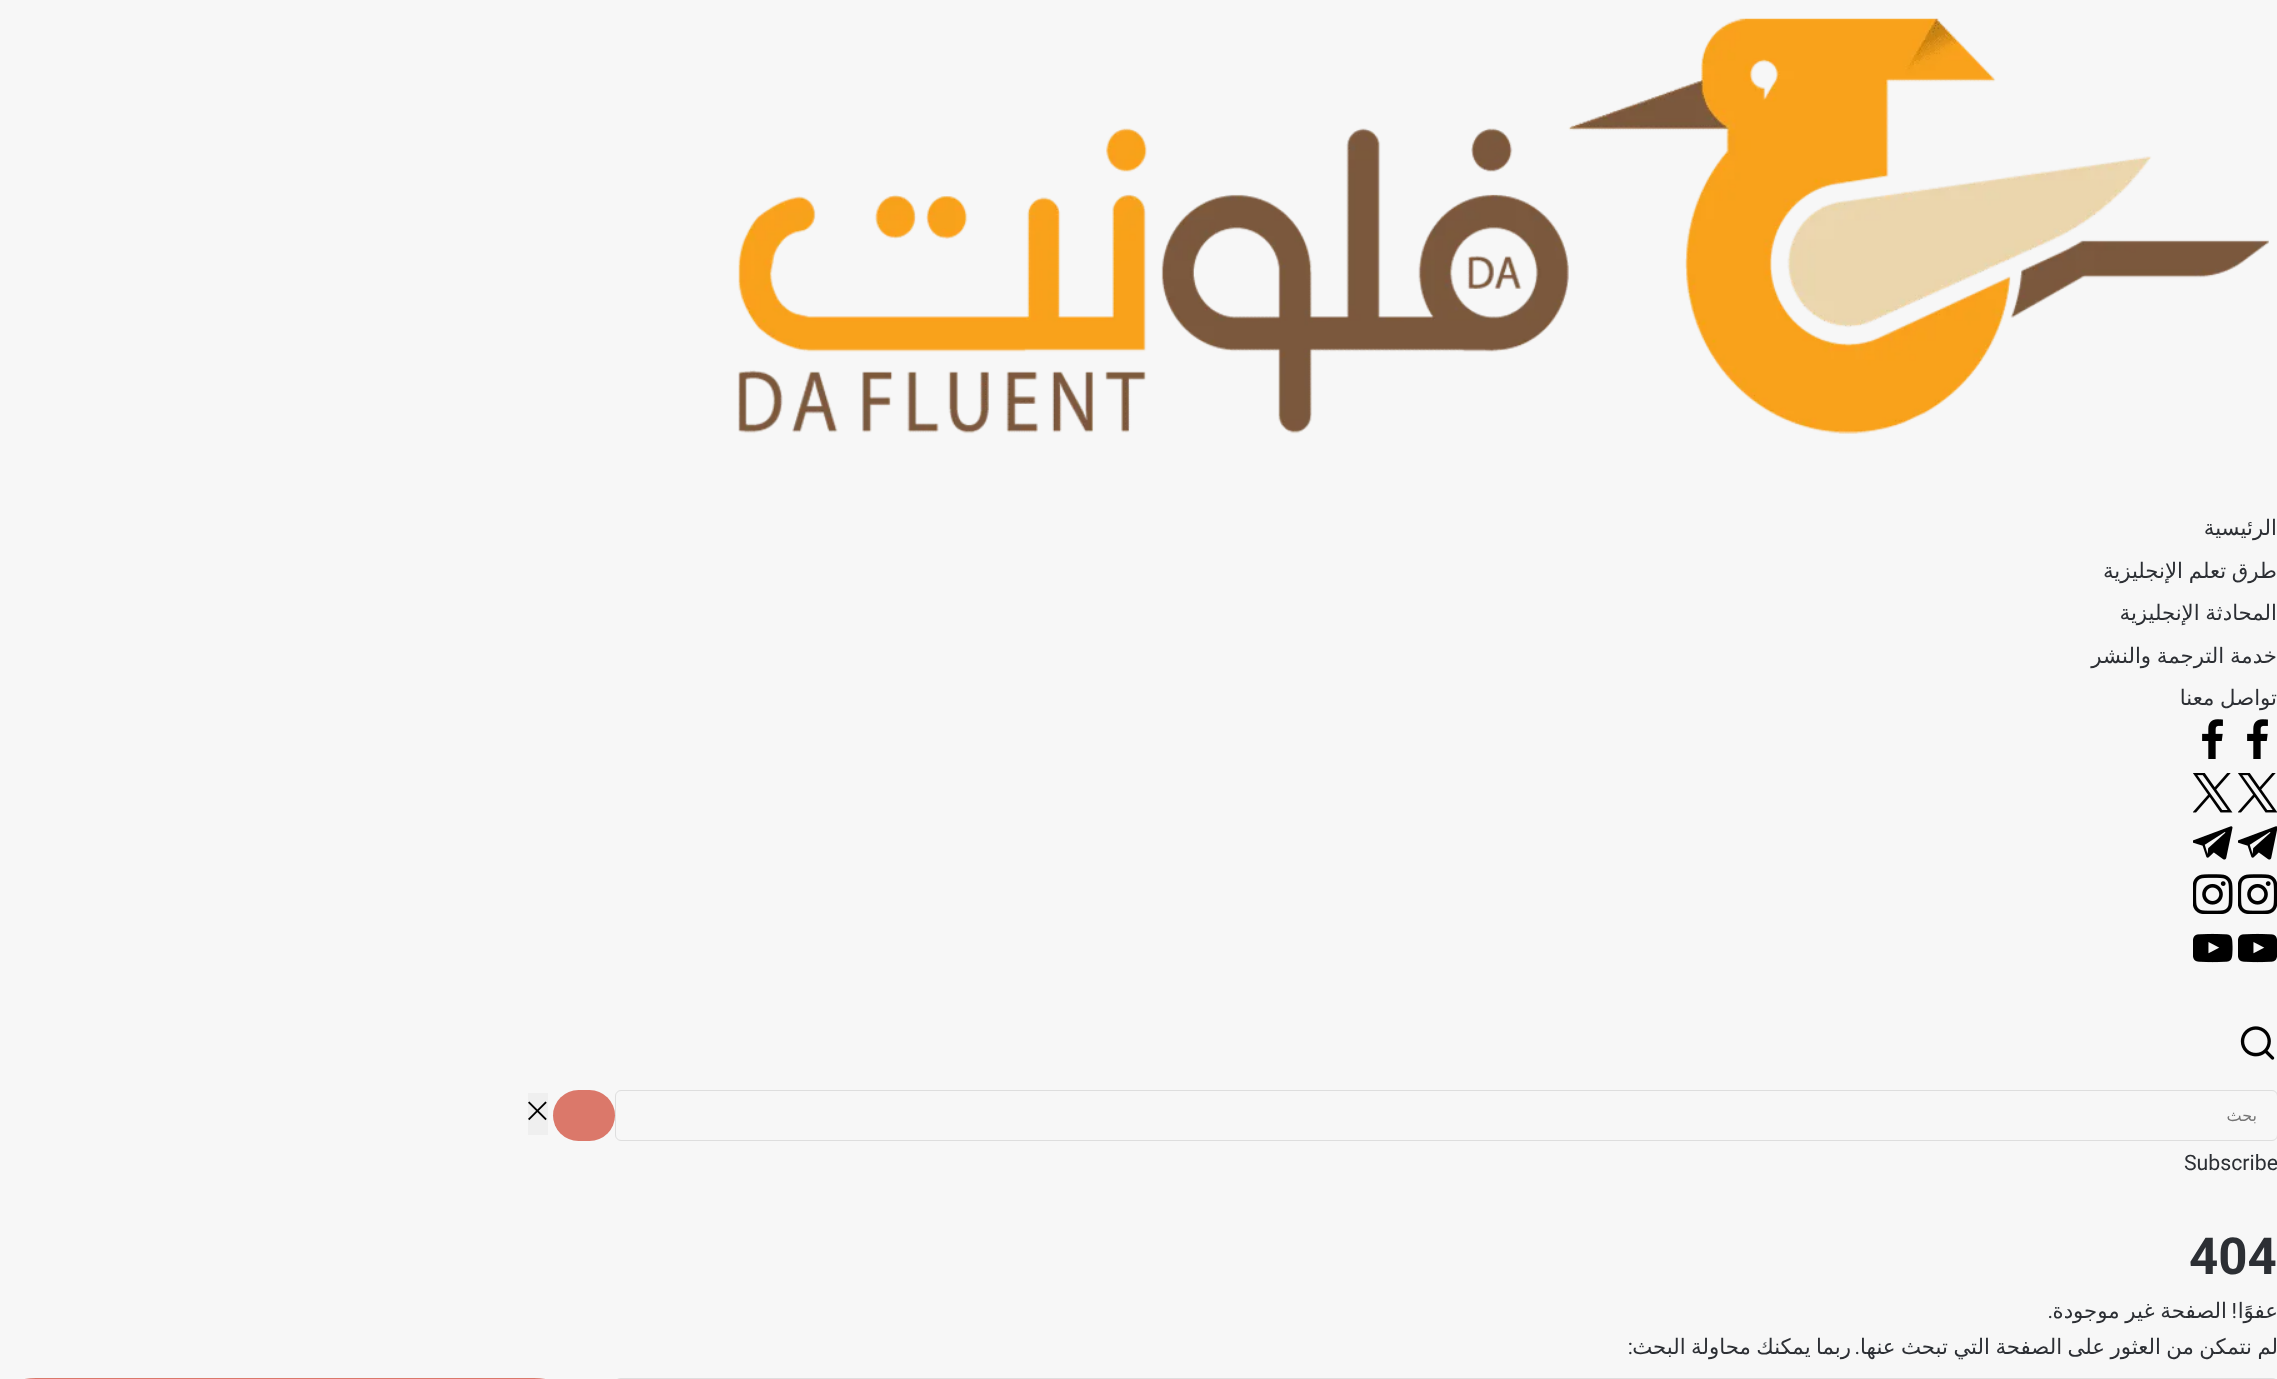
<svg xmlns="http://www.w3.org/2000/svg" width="2277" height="1379">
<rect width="100%" height="100%" fill="#f7f7f7"/>
<image x="738" y="18" width="1531" height="416" href="media/1.png"/>
<text x="2277" y="535" style="font-family:DejaVu Sans;font-size:21.25px;direction:rtl;fill:#2c2f34">الرئيسية</text>
<text x="2277" y="578" word-spacing="-1" style="font-family:DejaVu Sans;font-size:21.25px;direction:rtl;fill:#2c2f34">طرق تعلم الإنجليزية</text>
<text x="2277" y="620" word-spacing="-1" style="font-family:DejaVu Sans;font-size:21.25px;direction:rtl;fill:#2c2f34">المحادثة الإنجليزية</text>
<text x="2277" y="663" word-spacing="-1" style="font-family:DejaVu Sans;font-size:21.25px;direction:rtl;fill:#2c2f34">خدمة الترجمة والنشر</text>
<text x="2277" y="705" word-spacing="-1" style="font-family:DejaVu Sans;font-size:21.25px;direction:rtl;fill:#2c2f34">تواصل معنا</text>
<image x="2247" y="719" width="21" height="40" href="media/2.png"/>
<image x="2202" y="719" width="21" height="40" href="media/2.png"/>
<image x="2238" y="773" width="39" height="40" href="media/3.png"/>
<image x="2193" y="773" width="40" height="40" href="media/4.png"/>
<image x="2238" y="826" width="39" height="34" href="media/5.png"/>
<image x="2193" y="826" width="40" height="34" href="media/6.png"/>
<image x="2238" y="874" width="39" height="40" href="media/7.png"/>
<image x="2193" y="874" width="40" height="40" href="media/8.png"/>
<image x="2238" y="933" width="39" height="30" href="media/9.png"/>
<image x="2193" y="933" width="40" height="30" href="media/10.png"/>
<image x="2240" y="1026" width="35" height="34" href="media/11.png"/>
<rect x="615.5" y="1090.5" width="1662" height="50" rx="5.5" fill="none" stroke="#dedede"/>
<text x="2257" y="1121" style="font-family:DejaVu Sans;font-size:16px;direction:rtl;fill:#757575">بحث</text>
<rect x="553" y="1090" width="62" height="51" rx="25.5" fill="#db786a"/>
<rect x="528" y="1093" width="20" height="42" fill="#efefef"/>
<image x="528" y="1101" width="19" height="20" href="media/12.png"/>
<text x="2184" y="1170" style="font-family:Roboto;font-size:21.25px;fill:#2c2f34">Subscribe</text>
<text x="2189" y="1274" style="font-family:Roboto;font-size:51px;font-weight:bold;fill:#2c2f34">404</text>
<text x="2278" y="1318" style="font-family:DejaVu Sans;font-size:21.25px;direction:rtl;fill:#2c2f34">عفوًا</text>
<text x="2237" y="1318" style="font-family:Roboto;font-size:21.25px;direction:rtl;fill:#2c2f34">!</text>
<text x="2227" y="1318" word-spacing="-1" style="font-family:DejaVu Sans;font-size:21.25px;direction:rtl;fill:#2c2f34">الصفحة غير موجودة</text>
<text x="2053" y="1318" style="font-family:Roboto;font-size:21.25px;direction:rtl;fill:#2c2f34">.</text>
<text x="2278" y="1354" word-spacing="-1.25" style="font-family:DejaVu Sans;font-size:21.25px;direction:rtl;fill:#2c2f34">لم نتمكن من العثور على الصفحة التي تبحث عنها</text>
<text x="1860" y="1354" style="font-family:Roboto;font-size:21.25px;direction:rtl;fill:#2c2f34">.</text>
<text x="1851" y="1354" word-spacing="-1.25" style="font-family:DejaVu Sans;font-size:21.25px;direction:rtl;fill:#2c2f34">ربما يمكنك محاولة البحث</text>
<text x="1633" y="1354" style="font-family:Roboto;font-size:21.25px;direction:rtl;fill:#2c2f34">:</text>
<rect x="615.5" y="1378.5" width="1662" height="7" rx="5.5" fill="none" stroke="#dedede"/>
<rect y="1378" width="570" height="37" rx="36" fill="#db786a"/>
</svg>
